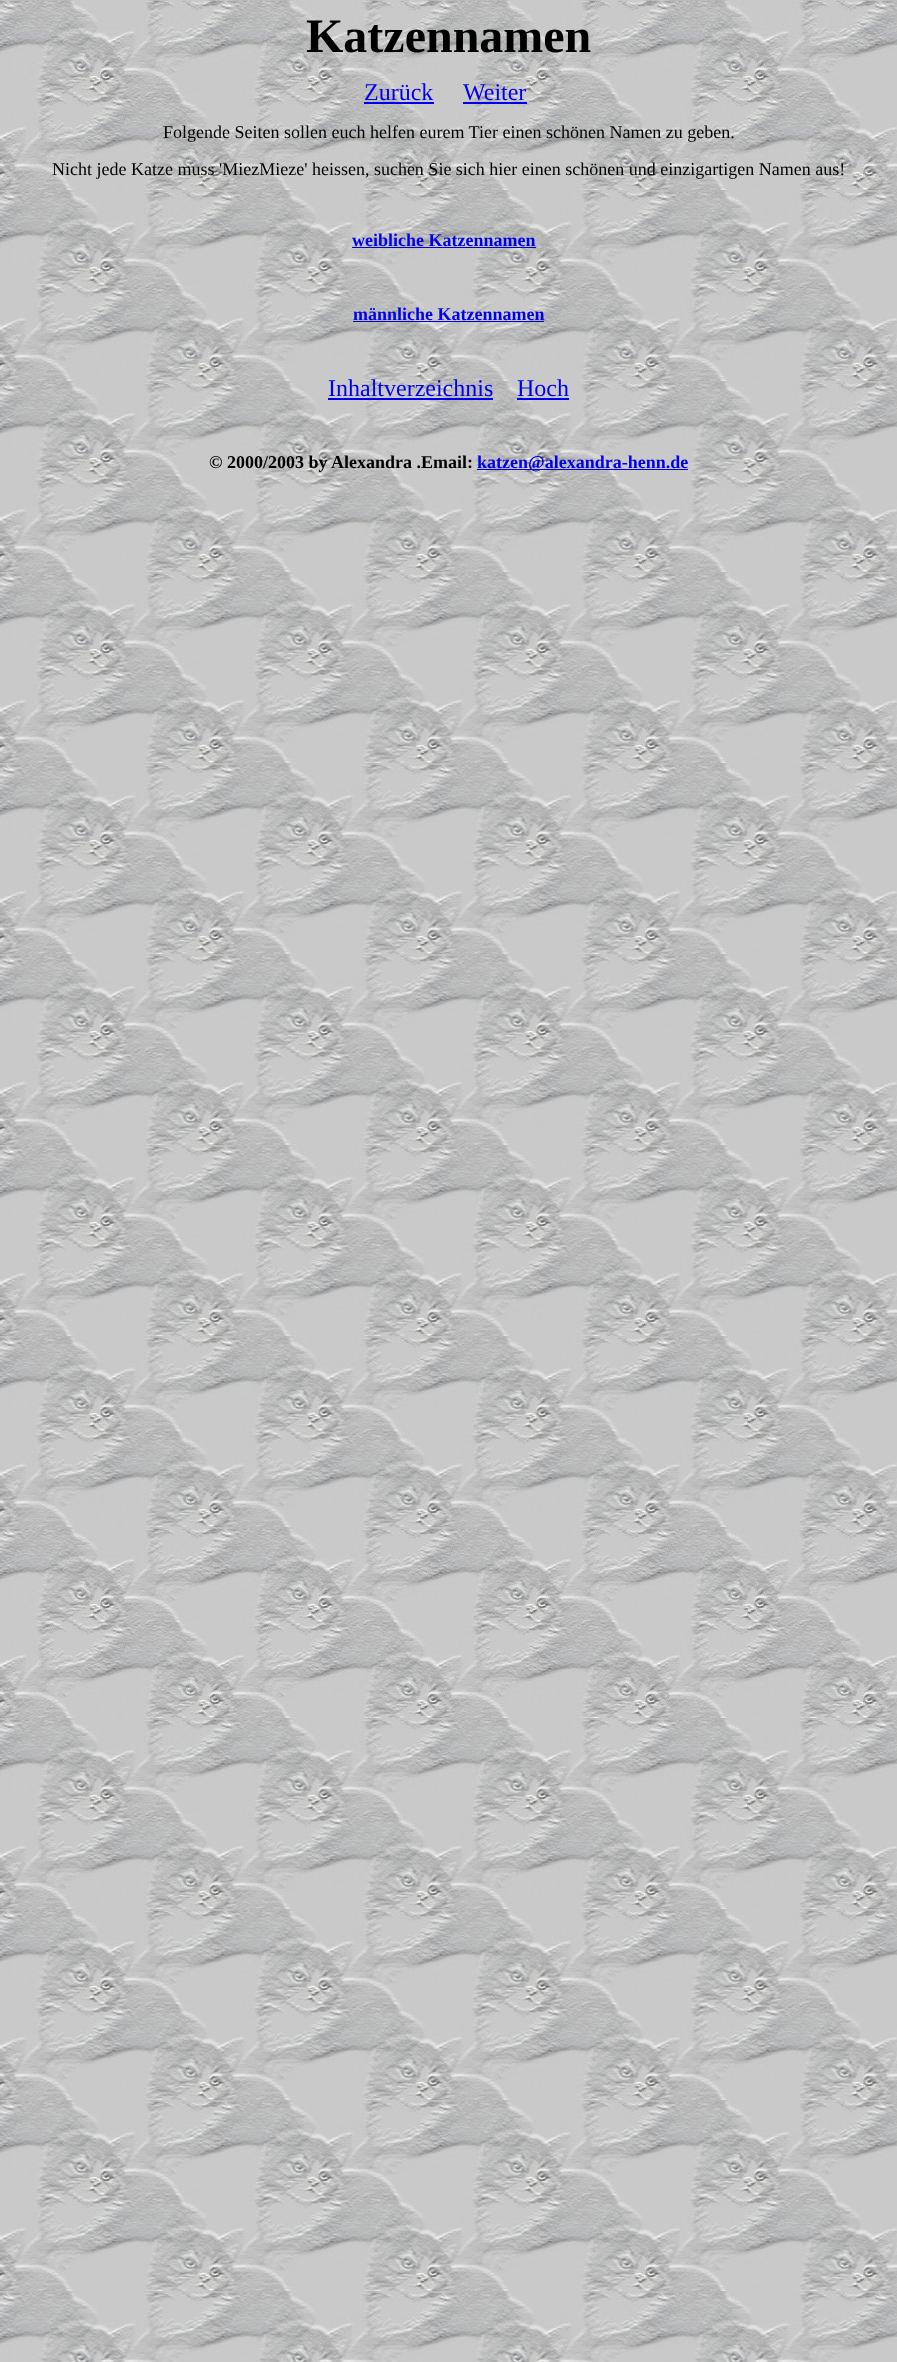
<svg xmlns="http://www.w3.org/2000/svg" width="897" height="2362">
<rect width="100%" height="100%" fill="#fff"/>
<image x="0" y="0" width="897" height="2362" href="media/1.png"/>
<text x="306" y="52" style="font-family:Liberation Serif;font-size:48px;font-weight:bold;fill:#000">Katzennamen</text>
<text x="364" y="100" style="font-family:Liberation Serif;font-size:24px;fill:#00e">Zurück</text>
<rect x="364" y="102" width="70" height="2" fill="#00e"/>
<text x="463" y="100" style="font-family:Liberation Serif;font-size:24px;fill:#00e">Weiter</text>
<rect x="463" y="102" width="64" height="2" fill="#00e"/>
<text x="163" y="138" style="font-family:Liberation Serif;font-size:18px;fill:#000">Folgende Seiten sollen euch helfen eurem Tier einen schönen Namen zu geben.</text>
<text x="52" y="175" style="font-family:Liberation Serif;font-size:18px;fill:#000">Nicht jede Katze muss 'MiezMieze' heissen, suchen Sie sich hier einen schönen und einzigartigen Namen aus!</text>
<text x="352" y="246" style="font-family:Liberation Serif;font-size:18px;font-weight:bold;fill:#00e">weibliche Katzennamen</text>
<rect x="352" y="247" width="184" height="1" fill="#00e"/>
<text x="353" y="320" style="font-family:Liberation Serif;font-size:18px;font-weight:bold;fill:#00e">männliche Katzennamen</text>
<rect x="353" y="321" width="191" height="1" fill="#00e"/>
<text x="328" y="396" style="font-family:Liberation Serif;font-size:24px;fill:#00e">Inhaltverzeichnis</text>
<rect x="328" y="398" width="165" height="2" fill="#00e"/>
<text x="517" y="396" style="font-family:Liberation Serif;font-size:24px;fill:#00e">Hoch</text>
<rect x="517" y="398" width="52" height="2" fill="#00e"/>
<text x="209" y="468" style="font-family:Liberation Serif;font-size:18px;font-weight:bold;fill:#000">© 2000/2003 by Alexandra .Email:</text>
<rect x="477" y="469" width="211" height="1" fill="#00e"/>
<text x="477" y="468" style="font-family:Liberation Serif;font-size:18px;font-weight:bold;fill:#00e">katzen@alexandra-henn.de</text>
</svg>
